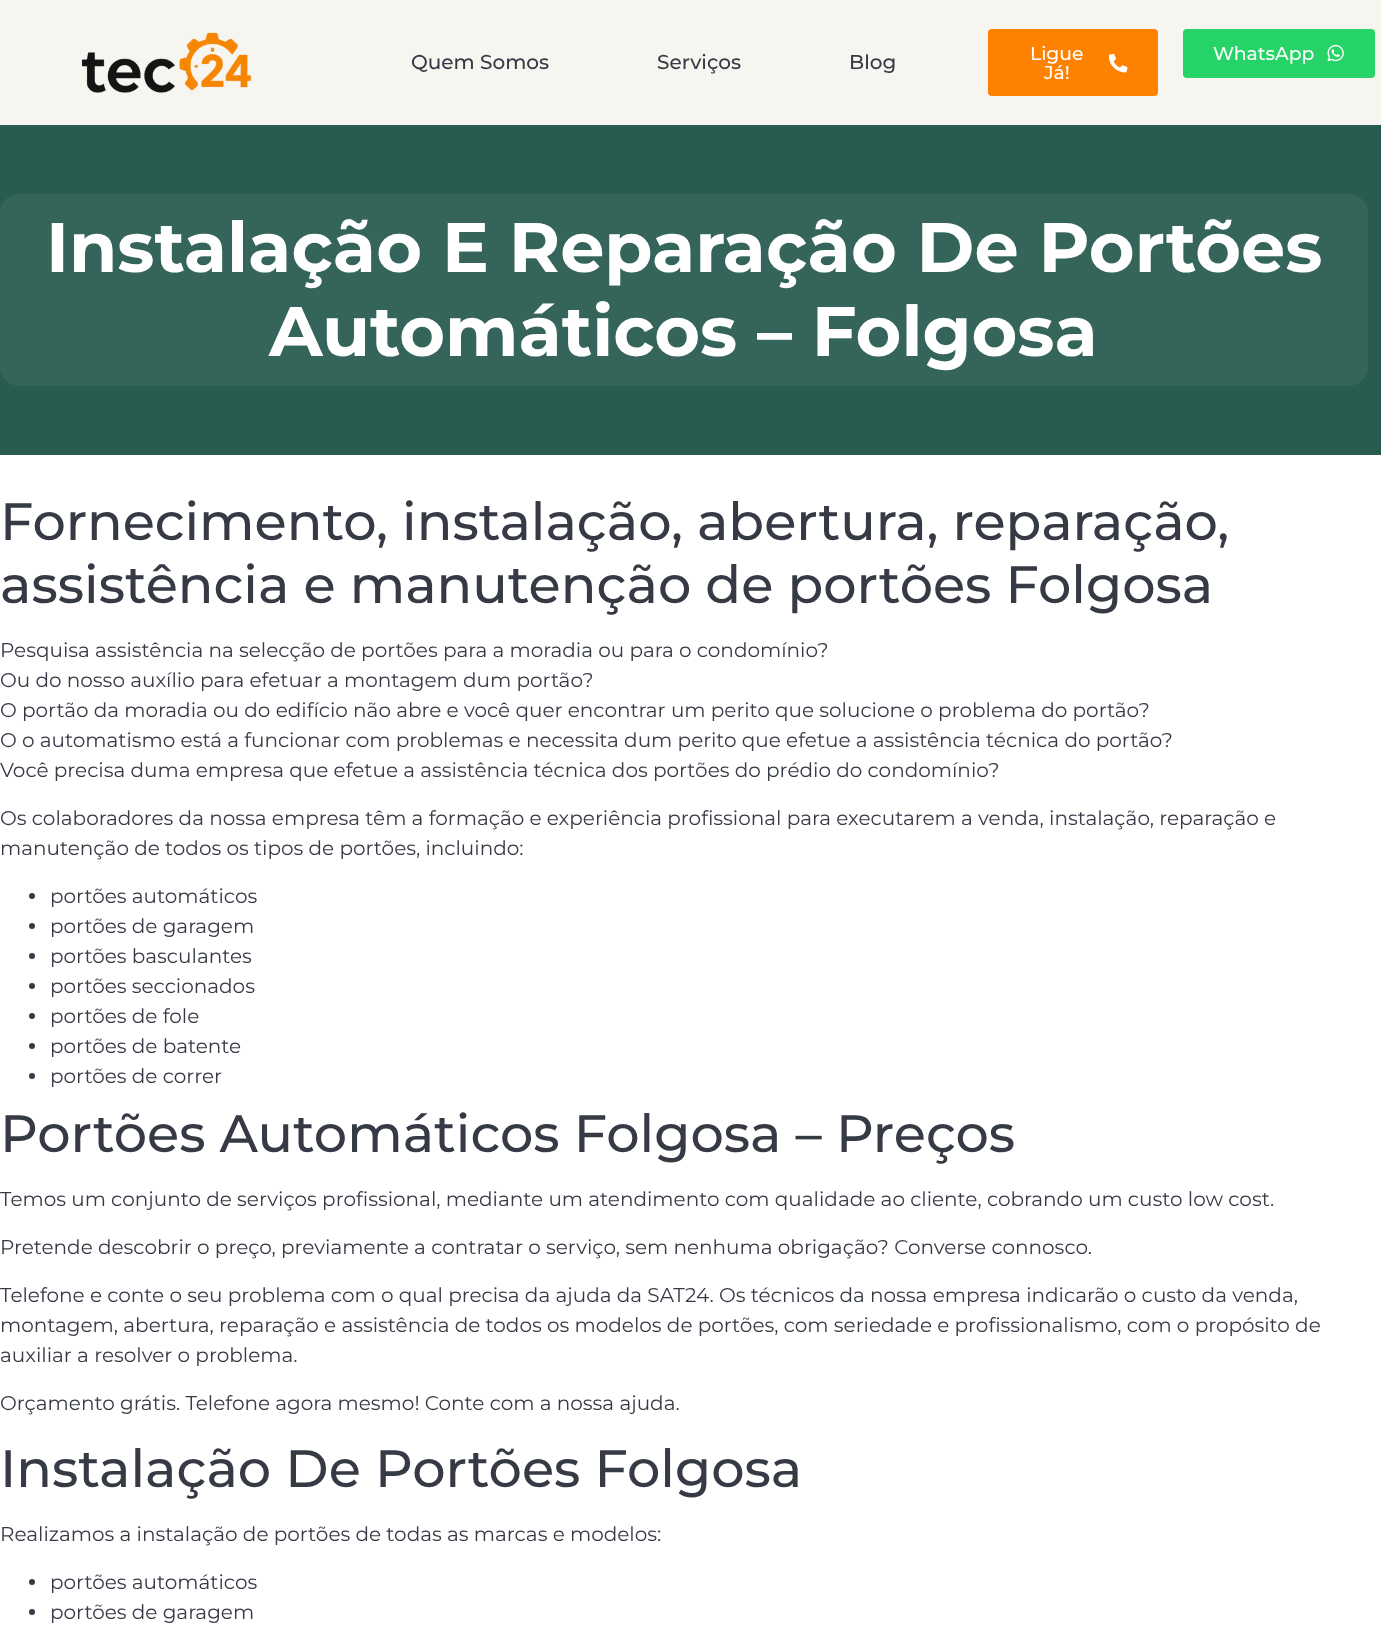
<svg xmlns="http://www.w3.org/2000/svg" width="1381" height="1635">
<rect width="100%" height="100%" fill="#fff"/>
<rect width="1381" height="125" fill="#f7f5f0"/>
<image x="81" y="32" width="171" height="61" href="media/1.png"/>
<text x="411" y="69" style="font-family:Montserrat;font-size:20px;font-weight:500;fill:#363a45">Quem Somos</text>
<text x="657" y="69" style="font-family:Montserrat;font-size:20px;font-weight:500;fill:#363a45">Serviços</text>
<text x="849" y="69" style="font-family:Montserrat;font-size:20px;font-weight:500;fill:#363a45">Blog</text>
<rect x="988" y="29" width="170" height="67" rx="4" fill="#ff8100"/>
<text x="1030" y="60" style="font-family:Montserrat;font-size:18.75px;font-weight:500;fill:#fff">Ligue</text>
<text x="1044" y="79" style="font-family:Montserrat;font-size:18.75px;font-weight:500;fill:#fff">Já!</text>
<image x="1109" y="54" width="19" height="19" href="media/2.png"/>
<rect x="1183" y="29" width="192" height="49" rx="4" fill="#25d366"/>
<text x="1213" y="60" style="font-family:Montserrat;font-size:18.75px;font-weight:500;fill:#fff">WhatsApp</text>
<image x="1327" y="44" width="17" height="18" href="media/3.png"/>
<rect y="125" width="1381" height="330" fill="#295c51"/>
<rect y="194" width="1368" height="192" rx="19" fill="#34645a"/>
<text x="46" y="272" style="font-family:Montserrat;font-size:70px;font-weight:bold;fill:#fff">Instalação E Reparação De Portões</text>
<text x="269" y="356" style="font-family:Montserrat;font-size:70px;font-weight:bold;fill:#fff">Automáticos – Folgosa</text>
<text x="0" y="540" style="font-family:Montserrat;font-size:52.5px;font-weight:500;fill:#363a45">Fornecimento, instalação, abertura, reparação,</text>
<text x="0" y="603" style="font-family:Montserrat;font-size:52.5px;font-weight:500;fill:#363a45">assistência e manutenção de portões Folgosa</text>
<text x="0" y="657" style="font-family:Montserrat;font-size:20px;fill:#363a45">Pesquisa assistência na selecção de portões para a moradia ou para o condomínio?</text>
<text x="0" y="687" style="font-family:Montserrat;font-size:20px;fill:#363a45">Ou do nosso auxílio para efetuar a montagem dum portão?</text>
<text x="0" y="717" style="font-family:Montserrat;font-size:20px;fill:#363a45">O portão da moradia ou do edifício não abre e você quer encontrar um perito que solucione o problema do portão?</text>
<text x="0" y="747" style="font-family:Montserrat;font-size:20px;fill:#363a45">O o automatismo está a funcionar com problemas e necessita dum perito que efetue a assistência técnica do portão?</text>
<text x="0" y="777" style="font-family:Montserrat;font-size:20px;fill:#363a45">Você precisa duma empresa que efetue a assistência técnica dos portões do prédio do condomínio?</text>
<text x="0" y="825" style="font-family:Montserrat;font-size:20px;fill:#363a45">Os colaboradores da nossa empresa têm a formação e experiência profissional para executarem a venda, instalação, reparação e</text>
<text x="0" y="855" style="font-family:Montserrat;font-size:20px;fill:#363a45">manutenção de todos os tipos de portões, incluindo:</text>
<circle cx="32" cy="896" r="3" fill="#363a45"/>
<text x="50" y="903" style="font-family:Montserrat;font-size:20px;fill:#363a45">portões automáticos</text>
<circle cx="32" cy="926" r="3" fill="#363a45"/>
<text x="50" y="933" style="font-family:Montserrat;font-size:20px;fill:#363a45">portões de garagem</text>
<circle cx="32" cy="956" r="3" fill="#363a45"/>
<text x="50" y="963" style="font-family:Montserrat;font-size:20px;fill:#363a45">portões basculantes</text>
<circle cx="32" cy="986" r="3" fill="#363a45"/>
<text x="50" y="993" style="font-family:Montserrat;font-size:20px;fill:#363a45">portões seccionados</text>
<circle cx="32" cy="1016" r="3" fill="#363a45"/>
<text x="50" y="1023" style="font-family:Montserrat;font-size:20px;fill:#363a45">portões de fole</text>
<circle cx="32" cy="1046" r="3" fill="#363a45"/>
<text x="50" y="1053" style="font-family:Montserrat;font-size:20px;fill:#363a45">portões de batente</text>
<circle cx="32" cy="1076" r="3" fill="#363a45"/>
<text x="50" y="1083" style="font-family:Montserrat;font-size:20px;fill:#363a45">portões de correr</text>
<text x="0" y="1152" style="font-family:Montserrat;font-size:52.5px;font-weight:500;fill:#363a45">Portões Automáticos Folgosa – Preços</text>
<text x="0" y="1206" style="font-family:Montserrat;font-size:20px;fill:#363a45">Temos um conjunto de serviços profissional, mediante um atendimento com qualidade ao cliente, cobrando um custo low cost.</text>
<text x="0" y="1254" style="font-family:Montserrat;font-size:20px;fill:#363a45">Pretende descobrir o preço, previamente a contratar o serviço, sem nenhuma obrigação? Converse connosco.</text>
<text x="0" y="1302" style="font-family:Montserrat;font-size:20px;fill:#363a45">Telefone e conte o seu problema com o qual precisa da ajuda da SAT24. Os técnicos da nossa empresa indicarão o custo da venda,</text>
<text x="0" y="1332" style="font-family:Montserrat;font-size:20px;fill:#363a45">montagem, abertura, reparação e assistência de todos os modelos de portões, com seriedade e profissionalismo, com o propósito de</text>
<text x="0" y="1362" style="font-family:Montserrat;font-size:20px;fill:#363a45">auxiliar a resolver o problema.</text>
<text x="0" y="1410" style="font-family:Montserrat;font-size:20px;fill:#363a45">Orçamento grátis. Telefone agora mesmo! Conte com a nossa ajuda.</text>
<text x="0" y="1487" style="font-family:Montserrat;font-size:52.5px;font-weight:500;fill:#363a45">Instalação De Portões Folgosa</text>
<text x="0" y="1541" style="font-family:Montserrat;font-size:20px;fill:#363a45">Realizamos a instalação de portões de todas as marcas e modelos:</text>
<circle cx="32" cy="1582" r="3" fill="#363a45"/>
<text x="50" y="1589" style="font-family:Montserrat;font-size:20px;fill:#363a45">portões automáticos</text>
<circle cx="32" cy="1612" r="3" fill="#363a45"/>
<text x="50" y="1619" style="font-family:Montserrat;font-size:20px;fill:#363a45">portões de garagem</text>
</svg>
